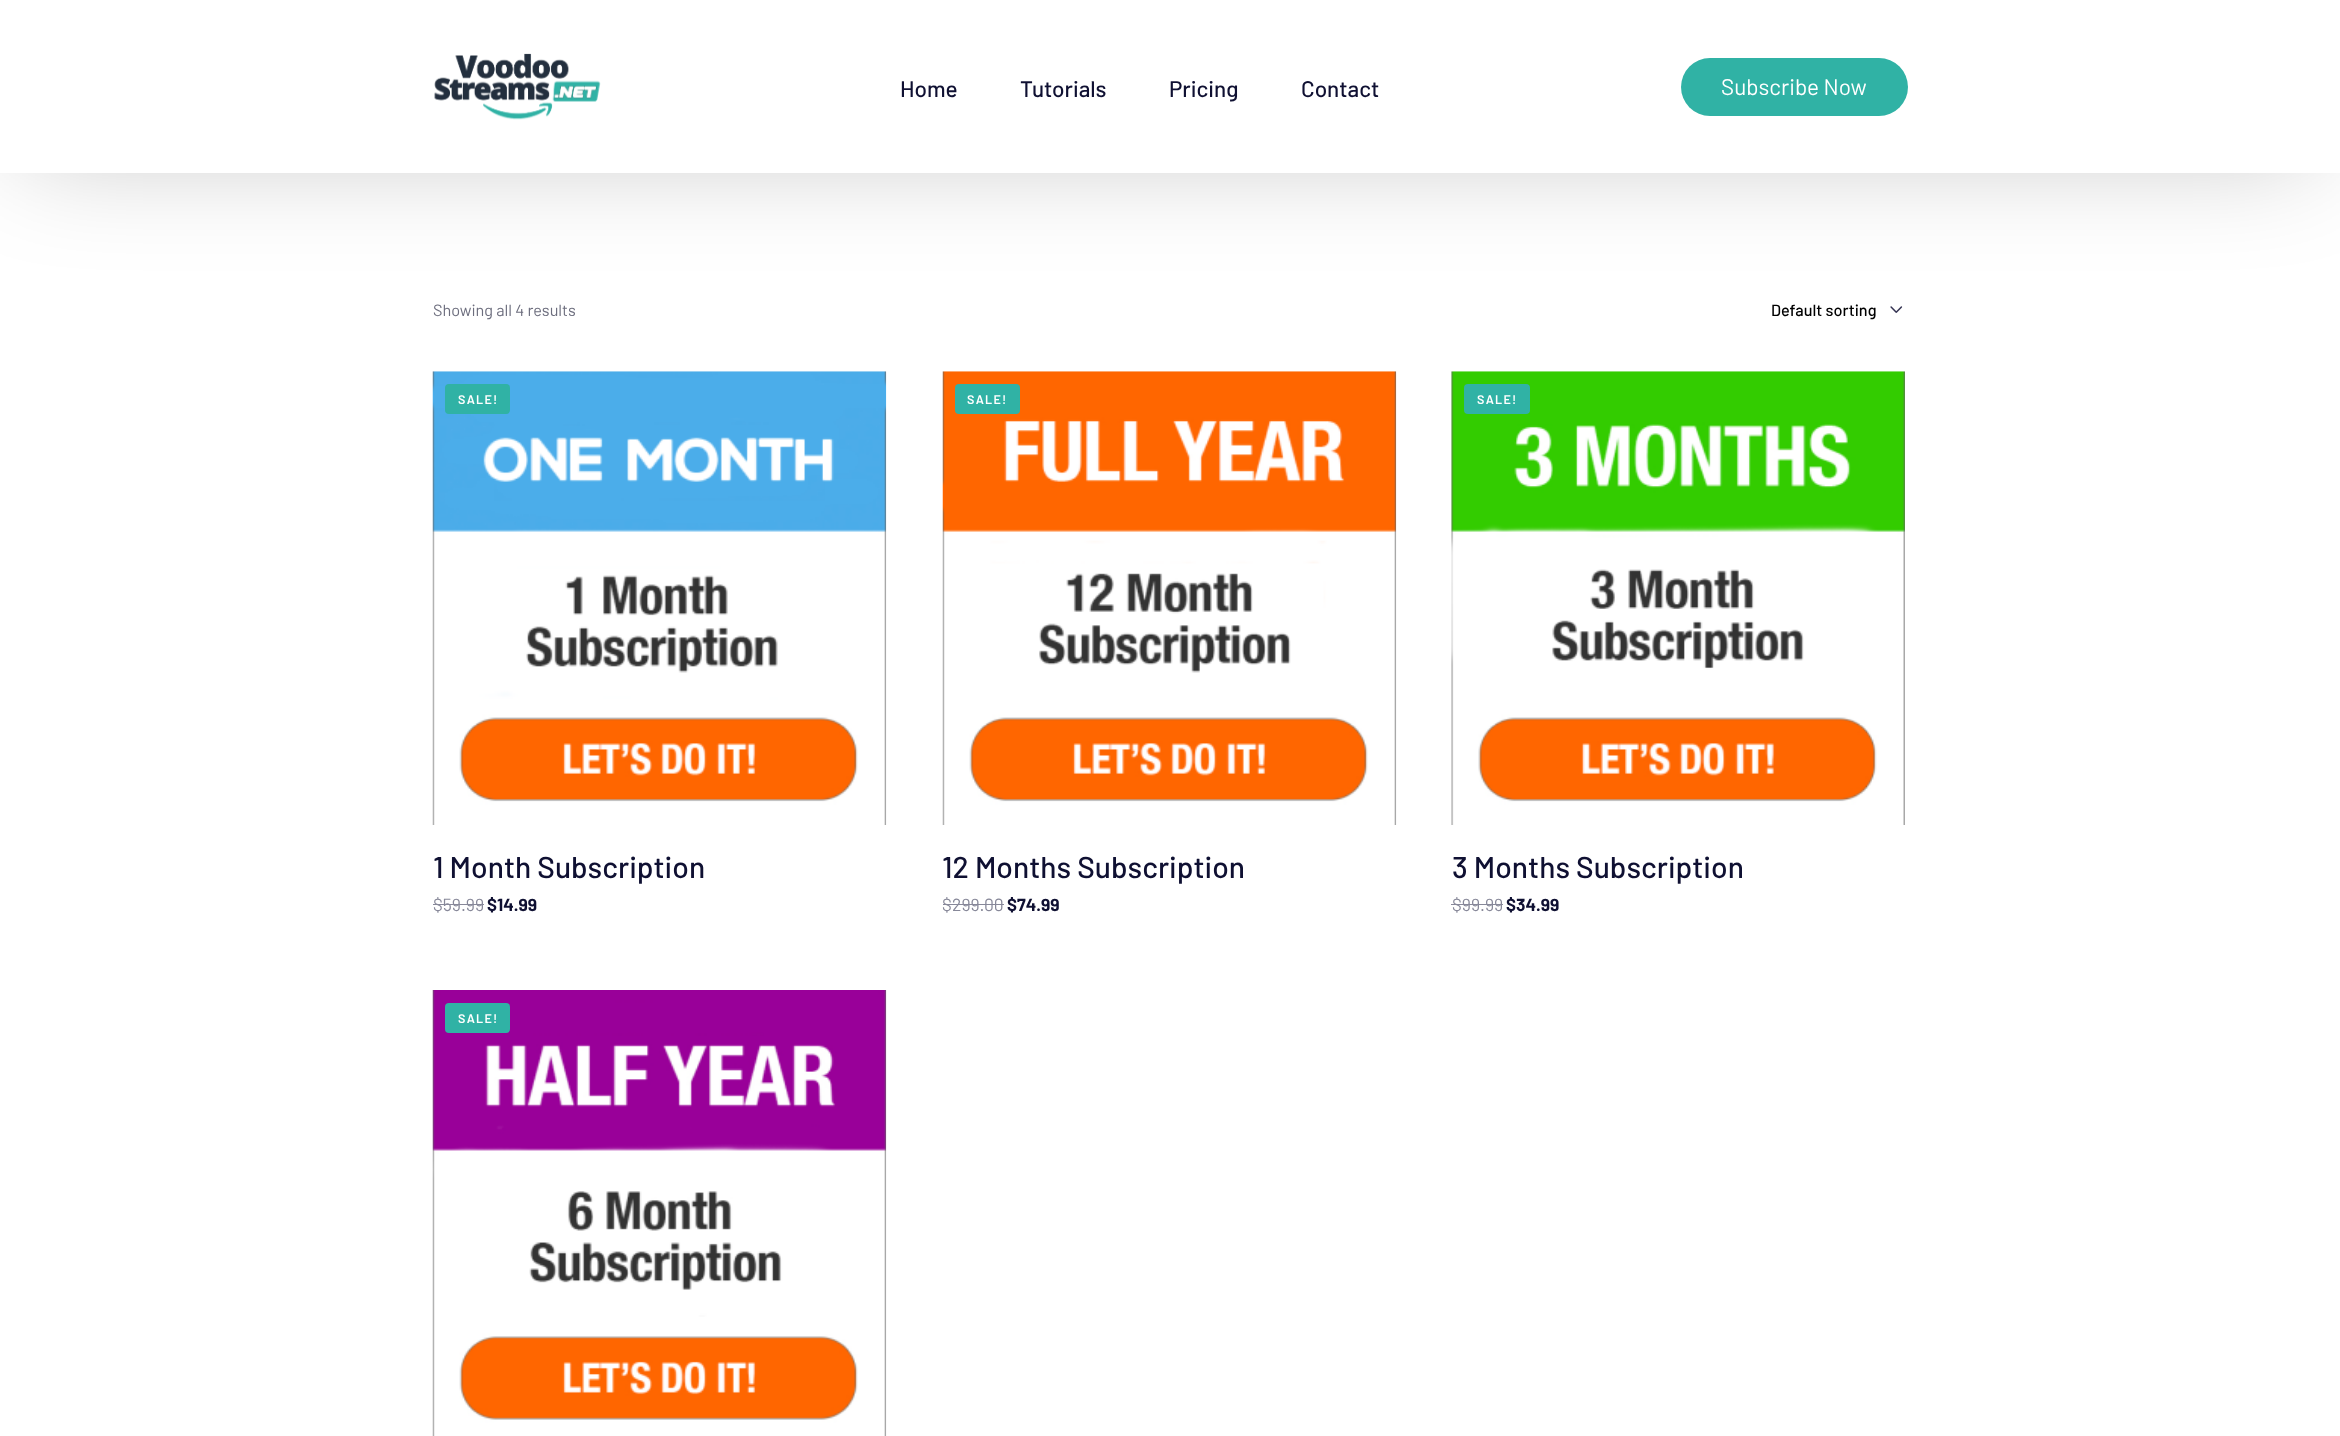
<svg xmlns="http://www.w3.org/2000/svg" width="2340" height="1436">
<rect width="100%" height="100%" fill="#fff"/>
<image x="1890" y="306" width="13" height="7" href="media/2.png"/>
<rect x="23" y="29" width="2290" height="122" fill="#00000040" filter="blur(56px)"/>
<rect width="2340" height="173" fill="#fff"/>
<image x="434" y="53" width="167" height="67" href="media/1.png"/>
<text x="900" y="97" style="font-family:Barlow;font-size:22.5px;font-weight:500;fill:#0f1032">Home</text>
<text x="1020" y="97" style="font-family:Barlow;font-size:22.5px;font-weight:500;fill:#0f1032">Tutorials</text>
<text x="1169" y="97" style="font-family:Barlow;font-size:22.5px;font-weight:500;fill:#0f1032">Pricing</text>
<text x="1301" y="97" style="font-family:Barlow;font-size:22.5px;font-weight:500;fill:#0f1032">Contact</text>
<rect x="1681" y="58" width="227" height="58" rx="29" fill="#30b2a5"/>
<text x="1721" y="95" style="font-family:Barlow;font-size:22.5px;fill:#fff">Subscribe Now</text>
<text x="433" y="316" style="font-family:Barlow;font-size:16.25px;fill:#6d6e7e">Showing all 4 results</text>
<text x="1771" y="316" style="font-family:Barlow;font-size:16.25px;font-weight:500;fill:#000">Default sorting</text>
<image x="432" y="371" width="455" height="454" href="media/3.png"/>
<rect x="445" y="384" width="65" height="30" rx="4" fill="#30b2a5"/>
<text x="458" y="404" style="font-family:Barlow;font-size:12.5px;font-weight:600;letter-spacing:1.25px;fill:#fff">SALE!</text>
<text x="433" y="878" style="font-family:Barlow;font-size:30px;font-weight:500;fill:#0f1032">1 Month Subscription</text>
<text x="433" y="911" style="font-family:Barlow;font-size:17.5px;fill:#878899">$59.99</text>
<rect x="433" y="904" width="51" height="1" fill="#878899"/>
<text x="487" y="911" style="font-family:Barlow;font-size:17.5px;font-weight:bold;fill:#0f1032">$14.99</text>
<image x="942" y="371" width="455" height="454" href="media/4.png"/>
<rect x="955" y="384" width="65" height="30" rx="4" fill="#30b2a5"/>
<text x="967" y="404" style="font-family:Barlow;font-size:12.5px;font-weight:600;letter-spacing:1.25px;fill:#fff">SALE!</text>
<text x="942" y="878" style="font-family:Barlow;font-size:30px;font-weight:500;fill:#0f1032">12 Months Subscription</text>
<text x="942" y="911" style="font-family:Barlow;font-size:17.5px;fill:#878899">$</text>
<rect x="943" y="904" width="10" height="1" fill="#878899"/>
<text x="952" y="911" style="font-family:Barlow;font-size:17.5px;fill:#878899">299.00</text>
<rect x="953" y="904" width="51" height="1" fill="#878899"/>
<text x="1007" y="911" style="font-family:Barlow;font-size:17.5px;font-weight:bold;fill:#0f1032">$74.99</text>
<image x="1451" y="371" width="454" height="454" href="media/5.png"/>
<rect x="1464" y="384" width="66" height="30" rx="4" fill="#30b2a5"/>
<text x="1477" y="404" style="font-family:Barlow;font-size:12.5px;font-weight:600;letter-spacing:1.25px;fill:#fff">SALE!</text>
<text x="1452" y="878" style="font-family:Barlow;font-size:30px;font-weight:500;fill:#0f1032">3 Months Subscription</text>
<text x="1452" y="911" style="font-family:Barlow;font-size:17.5px;fill:#878899">$99.99</text>
<rect x="1451" y="904" width="52" height="1" fill="#878899"/>
<text x="1506" y="911" style="font-family:Barlow;font-size:17.5px;font-weight:bold;fill:#0f1032">$34.99</text>
<image x="432" y="990" width="455" height="446" href="media/6.png"/>
<rect x="445" y="1003" width="65" height="30" rx="4" fill="#30b2a5"/>
<text x="458" y="1023" style="font-family:Barlow;font-size:12.5px;font-weight:600;letter-spacing:1.25px;fill:#fff">SALE!</text>
</svg>
